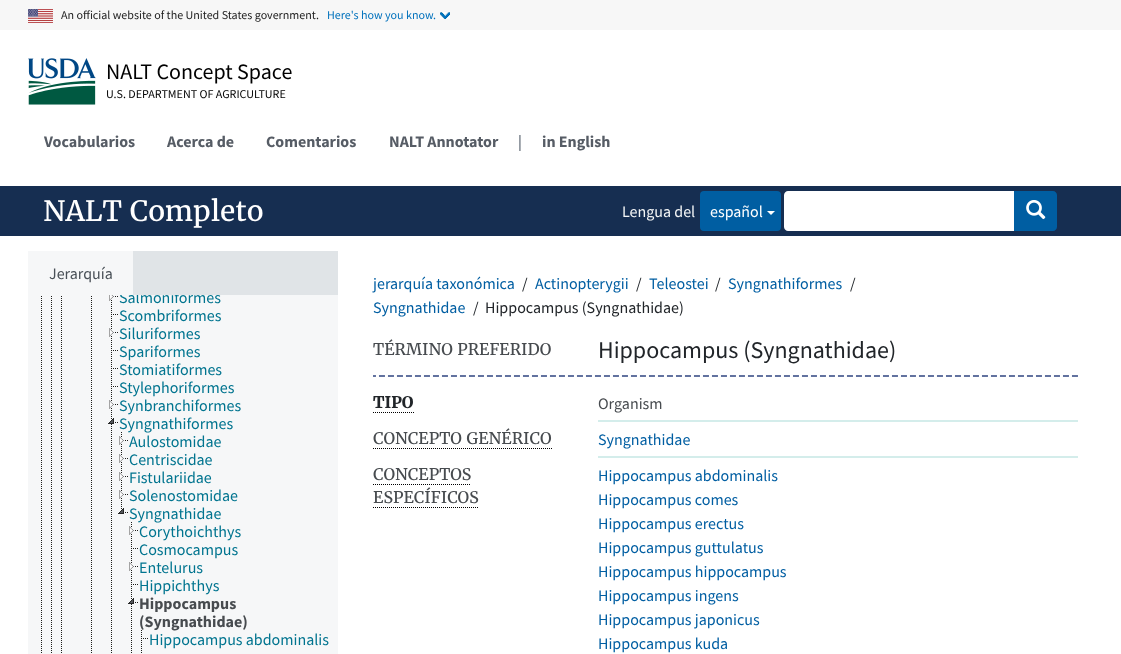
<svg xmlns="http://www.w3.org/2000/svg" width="1121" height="654">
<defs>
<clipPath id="clip1"><rect x="28" y="295" width="310" height="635"/></clipPath>
</defs>
<rect width="100%" height="100%" fill="#fff"/>
<rect width="1121" height="30" fill="#f7f7f7"/>
<image x="28" y="9" width="25" height="14" href="media/1.png"/>
<text x="61" y="19" style="font-family:Source Sans Pro;font-size:12px;fill:#212121">An official website of the United States government.</text>
<image x="440" y="12" width="10" height="7" href="media/2.png"/>
<text x="327" y="19" style="font-family:Source Sans Pro;font-size:12px;fill:#0071bc">Here's how you know.</text>
<image x="28" y="58" width="68" height="47" href="media/3.png"/>
<text x="106" y="79" style="font-family:Source Sans Pro;font-size:22px;fill:#000">NALT Concept Space</text>
<text x="106" y="98" style="font-family:Source Sans Pro;font-size:12px;fill:#000">U.S. DEPARTMENT OF AGRICULTURE</text>
<text x="44" y="147" style="font-family:Source Sans Pro;font-size:16px;font-weight:bold;fill:#565c65">Vocabularios</text>
<text x="167" y="147" style="font-family:Source Sans Pro;font-size:16px;font-weight:bold;fill:#565c65">Acerca de</text>
<text x="266" y="147" style="font-family:Source Sans Pro;font-size:16px;font-weight:bold;fill:#565c65">Comentarios</text>
<text x="389" y="147" style="font-family:Source Sans Pro;font-size:16px;font-weight:bold;fill:#565c65">NALT Annotator</text>
<text x="518" y="147" style="font-family:Source Sans Pro;font-size:16px;fill:#394554">|</text>
<text x="542" y="147" style="font-family:Source Sans Pro;font-size:16px;font-weight:bold;fill:#565c65">in English</text>
<rect y="186" width="1121" height="50" fill="#162e51"/>
<text x="43" y="221" style="font-family:Merriweather;font-size:28px;fill:#fff">NALT Completo</text>
<text x="622" y="217" style="font-family:Source Sans Pro;font-size:16px;fill:#f3f5f6">Lengua del</text>
<rect x="700" y="191" width="81" height="40" rx="4" fill="#005ea2"/>
<text x="710" y="217" style="font-family:Source Sans Pro;font-size:16px;fill:#fff">español</text>
<path d="M767 211h8l-4 4z" fill="#fff"/>
<path d="M788 191h227v40h-227c-2 0-4-2-4-4v-32c0-2 2-4 4-4z" fill="#fff"/>
<path d="M1014 191h39c2 0 4 2 4 4v32c0 2-2 4-4 4h-39z" fill="#005ea2"/>
<image x="1026" y="200" width="20" height="20" href="media/4.png"/>
<rect x="133" y="251" width="205" height="44" fill="#e0e4e7"/>
<rect x="28" y="251" width="105" height="44" fill="#f6f7f8"/>
<text x="49" y="279" style="font-family:Source Sans Pro;font-size:16px;fill:#495057">Jerarquía</text>
<rect x="28" y="295" width="310" height="359" fill="#f6f7f8"/>
<image x="41" y="296" width="1" height="357" href="media/5.png"/>
<image x="51" y="296" width="1" height="357" href="media/5.png"/>
<image x="61" y="296" width="1" height="357" href="media/5.png"/>
<image x="91" y="296" width="1" height="357" href="media/5.png"/>
<image x="111" y="300" width="1" height="5" href="media/6.png"/>
<image x="109" y="295" width="9" height="6" href="media/7.png"/>
<g clip-path="url(#clip1)">
<text x="119" y="303" style="font-family:Source Sans Pro;font-size:16px;fill:#00748f">Salmoniformes</text>
</g>
<image x="111" y="306" width="1" height="17" href="media/8.png"/>
<image x="113" y="314" width="5" height="1" href="media/9.png"/>
<text x="119" y="321" style="font-family:Source Sans Pro;font-size:16px;fill:#00748f">Scombriformes</text>
<image x="111" y="324" width="1" height="17" href="media/8.png"/>
<image x="109" y="328" width="9" height="9" href="media/10.png"/>
<text x="119" y="339" style="font-family:Source Sans Pro;font-size:16px;fill:#00748f">Siluriformes</text>
<image x="111" y="342" width="1" height="17" href="media/8.png"/>
<image x="113" y="350" width="5" height="1" href="media/9.png"/>
<text x="119" y="357" style="font-family:Source Sans Pro;font-size:16px;fill:#00748f">Spariformes</text>
<image x="111" y="360" width="1" height="17" href="media/8.png"/>
<image x="113" y="368" width="5" height="1" href="media/9.png"/>
<text x="119" y="375" style="font-family:Source Sans Pro;font-size:16px;fill:#00748f">Stomiatiformes</text>
<image x="111" y="378" width="1" height="17" href="media/8.png"/>
<image x="113" y="386" width="5" height="1" href="media/9.png"/>
<text x="119" y="393" style="font-family:Source Sans Pro;font-size:16px;fill:#00748f">Stylephoriformes</text>
<image x="111" y="396" width="1" height="17" href="media/8.png"/>
<image x="109" y="400" width="9" height="9" href="media/10.png"/>
<text x="119" y="411" style="font-family:Source Sans Pro;font-size:16px;fill:#00748f">Synbranchiformes</text>
<image x="111" y="414" width="1" height="239" href="media/11.png"/>
<image x="108" y="418" width="10" height="6" href="media/12.png"/>
<image x="121" y="432" width="1" height="17" href="media/8.png"/>
<text x="119" y="429" style="font-family:Source Sans Pro;font-size:16px;fill:#00748f">Syngnathiformes</text>
<image x="119" y="436" width="9" height="9" href="media/10.png"/>
<text x="129" y="447" style="font-family:Source Sans Pro;font-size:16px;fill:#00748f">Aulostomidae</text>
<image x="121" y="450" width="1" height="17" href="media/8.png"/>
<image x="119" y="454" width="9" height="9" href="media/10.png"/>
<text x="129" y="465" style="font-family:Source Sans Pro;font-size:16px;fill:#00748f">Centriscidae</text>
<image x="121" y="468" width="1" height="17" href="media/8.png"/>
<image x="119" y="472" width="9" height="9" href="media/10.png"/>
<text x="129" y="483" style="font-family:Source Sans Pro;font-size:16px;fill:#00748f">Fistulariidae</text>
<image x="121" y="486" width="1" height="17" href="media/8.png"/>
<image x="119" y="490" width="9" height="9" href="media/10.png"/>
<text x="129" y="501" style="font-family:Source Sans Pro;font-size:16px;fill:#00748f">Solenostomidae</text>
<image x="118" y="504" width="10" height="10" href="media/13.png"/>
<image x="131" y="522" width="1" height="17" href="media/8.png"/>
<text x="129" y="519" style="font-family:Source Sans Pro;font-size:16px;fill:#00748f">Syngnathidae</text>
<image x="129" y="526" width="9" height="9" href="media/10.png"/>
<text x="139" y="537" style="font-family:Source Sans Pro;font-size:16px;fill:#00748f">Corythoichthys</text>
<image x="131" y="540" width="1" height="17" href="media/8.png"/>
<image x="133" y="548" width="5" height="1" href="media/9.png"/>
<text x="139" y="555" style="font-family:Source Sans Pro;font-size:16px;fill:#00748f">Cosmocampus</text>
<image x="131" y="558" width="1" height="17" href="media/8.png"/>
<image x="129" y="562" width="9" height="9" href="media/10.png"/>
<text x="139" y="573" style="font-family:Source Sans Pro;font-size:16px;fill:#00748f">Entelurus</text>
<image x="131" y="576" width="1" height="17" href="media/8.png"/>
<image x="133" y="584" width="5" height="1" href="media/9.png"/>
<text x="139" y="591" style="font-family:Source Sans Pro;font-size:16px;fill:#00748f">Hippichthys</text>
<image x="131" y="594" width="1" height="59" href="media/14.png"/>
<image x="128" y="598" width="10" height="6" href="media/12.png"/>
<text x="139" y="609" style="font-family:Source Sans Pro;font-size:16px;font-weight:bold;fill:#474b4f">Hippocampus</text>
<image x="141" y="630" width="1" height="17" href="media/8.png"/>
<text x="139" y="627" style="font-family:Source Sans Pro;font-size:16px;font-weight:bold;fill:#474b4f">(Syngnathidae)</text>
<image x="143" y="638" width="5" height="1" href="media/9.png"/>
<text x="149" y="645" style="font-family:Source Sans Pro;font-size:16px;fill:#00748f">Hippocampus abdominalis</text>
<image x="141" y="648" width="1" height="5" href="media/6.png"/>
<text x="373" y="289" style="font-family:Source Sans Pro;font-size:16px;fill:#005ea2">jerarquía taxonómica</text>
<text x="522" y="289" style="font-family:Source Sans Pro;font-size:16px;fill:#212529">/</text>
<text x="535" y="289" style="font-family:Source Sans Pro;font-size:16px;fill:#005ea2">Actinopterygii</text>
<text x="636" y="289" style="font-family:Source Sans Pro;font-size:16px;fill:#212529">/</text>
<text x="649" y="289" style="font-family:Source Sans Pro;font-size:16px;fill:#005ea2">Teleostei</text>
<text x="715" y="289" style="font-family:Source Sans Pro;font-size:16px;fill:#212529">/</text>
<text x="728" y="289" style="font-family:Source Sans Pro;font-size:16px;fill:#005ea2">Syngnathiformes</text>
<text x="850" y="289" style="font-family:Source Sans Pro;font-size:16px;fill:#212529">/</text>
<text x="373" y="313" style="font-family:Source Sans Pro;font-size:16px;fill:#005ea2">Syngnathidae</text>
<text x="473" y="313" style="font-family:Source Sans Pro;font-size:16px;fill:#212529">/</text>
<text x="485" y="313" style="font-family:Source Sans Pro;font-size:16px;fill:#212529">Hippocampus (Syngnathidae)</text>
<text x="373" y="355" style="font-family:Merriweather;font-size:16px;fill:#474b4f">TÉRMINO PREFERIDO</text>
<text x="598" y="358" style="font-family:Source Sans Pro;font-size:24px;fill:#212529">Hippocampus (Syngnathidae)</text>
<image x="373" y="375" width="705" height="2" href="media/15.png"/>
<text x="373" y="408" style="font-family:Merriweather;font-size:16px;font-weight:bold;fill:#212529">TIPO</text>
<path d="M373 412.5h41" fill="none" stroke="#000" stroke-dasharray="1 1"/>
<rect x="598" y="420" width="480" height="2" fill="#d4edeb"/>
<text x="598" y="409" style="font-family:Source Sans Pro;font-size:16px;fill:#474b4f">Organism</text>
<text x="373" y="444" style="font-family:Merriweather;font-size:16px;fill:#474b4f">CONCEPTO GENÉRICO</text>
<path d="M373 448.5h179" fill="none" stroke="#000" stroke-dasharray="1 1"/>
<rect x="598" y="456" width="480" height="2" fill="#d4edeb"/>
<text x="598" y="445" style="font-family:Source Sans Pro;font-size:16px;fill:#005ea2">Syngnathidae</text>
<text x="373" y="480" style="font-family:Merriweather;font-size:16px;fill:#474b4f">CONCEPTOS</text>
<path d="M373 484.5h98" fill="none" stroke="#000" stroke-dasharray="1 1"/>
<text x="373" y="503" style="font-family:Merriweather;font-size:16px;fill:#474b4f">ESPECÍFICOS</text>
<path d="M373 507.5h106" fill="none" stroke="#000" stroke-dasharray="1 1"/>
<text x="598" y="481" style="font-family:Source Sans Pro;font-size:16px;fill:#005ea2">Hippocampus abdominalis</text>
<text x="598" y="505" style="font-family:Source Sans Pro;font-size:16px;fill:#005ea2">Hippocampus comes</text>
<text x="598" y="529" style="font-family:Source Sans Pro;font-size:16px;fill:#005ea2">Hippocampus erectus</text>
<text x="598" y="553" style="font-family:Source Sans Pro;font-size:16px;fill:#005ea2">Hippocampus guttulatus</text>
<text x="598" y="577" style="font-family:Source Sans Pro;font-size:16px;fill:#005ea2">Hippocampus hippocampus</text>
<text x="598" y="601" style="font-family:Source Sans Pro;font-size:16px;fill:#005ea2">Hippocampus ingens</text>
<text x="598" y="625" style="font-family:Source Sans Pro;font-size:16px;fill:#005ea2">Hippocampus japonicus</text>
<text x="598" y="649" style="font-family:Source Sans Pro;font-size:16px;fill:#005ea2">Hippocampus kuda</text>
</svg>
